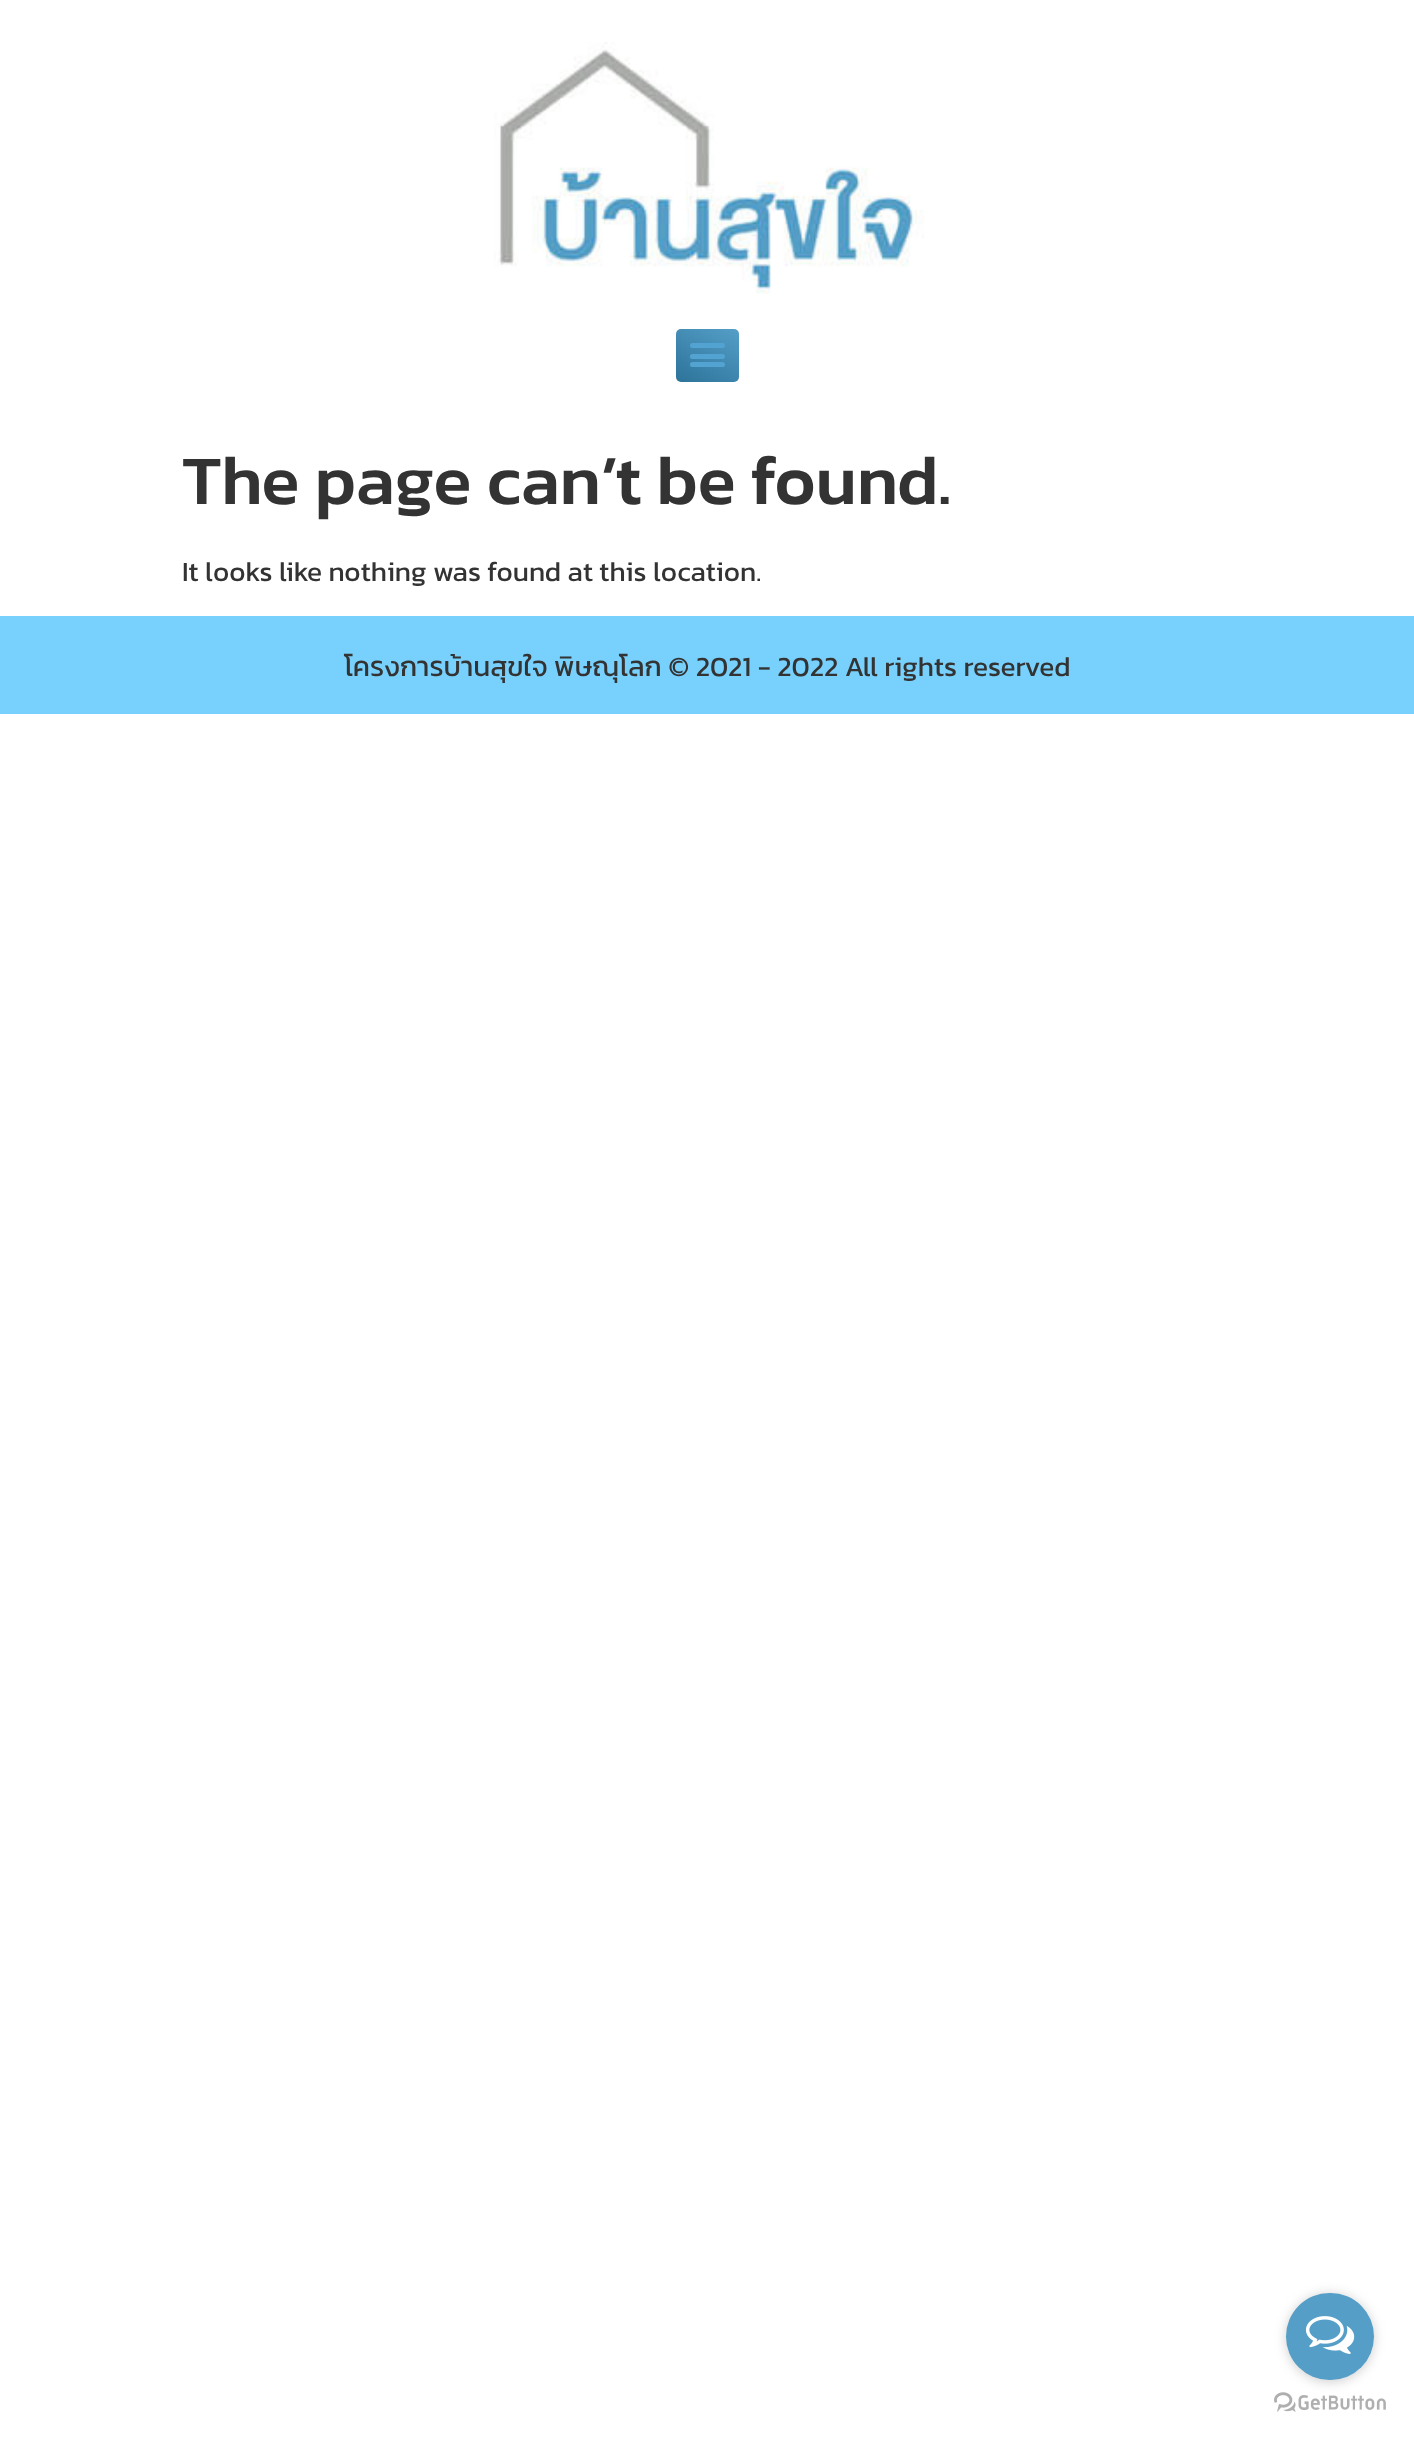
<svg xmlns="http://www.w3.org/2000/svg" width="1414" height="2439">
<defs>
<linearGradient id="g1" gradientUnits="userSpaceOnUse" x1="726" y1="322" x2="688" y2="389"><stop offset="0" stop-color="#549ec7"/><stop offset="1" stop-color="#2d739a"/></linearGradient>
</defs>
<rect width="100%" height="100%" fill="#fff"/>
<image x="494" y="42" width="430" height="252" href="media/1.png"/>
<rect x="676" y="329" width="63" height="53" rx="5" fill="url(#g1)"/>
<rect x="690" y="354" width="35" height="5" rx="2.5" fill="#52a3d2"/>
<rect x="690" y="343" width="35" height="5" rx="2.5" fill="#52a3d2"/>
<rect x="690" y="362" width="35" height="5" rx="2.5" fill="#52a3d2"/>
<text x="182" y="504" style="font-family:Kanit;font-size:70px;font-weight:500;fill:#333">The page can’t be found.</text>
<text x="182" y="581" style="font-family:Kanit;font-size:28px;fill:#333">It looks like nothing was found at this location.</text>
<rect y="616" width="1414" height="98" fill="#78d1fc"/>
<text x="344" y="676" style="font-family:Kanit;font-size:28px;fill:#333">โครงการบ้านสุขใจ พิษณุโลก © 2021 - 2022 All rights reserved</text>
<image x="1274" y="2392" width="112" height="20" href="media/3.png"/>
<rect x="1286" y="2294" width="88" height="88" rx="44" fill="#88888866" filter="blur(6px)"/>
<rect x="1286" y="2293" width="88" height="87" rx="43.5" fill="#549ec7"/>
<image x="1305" y="2316" width="50" height="38" href="media/2.png"/>
</svg>
